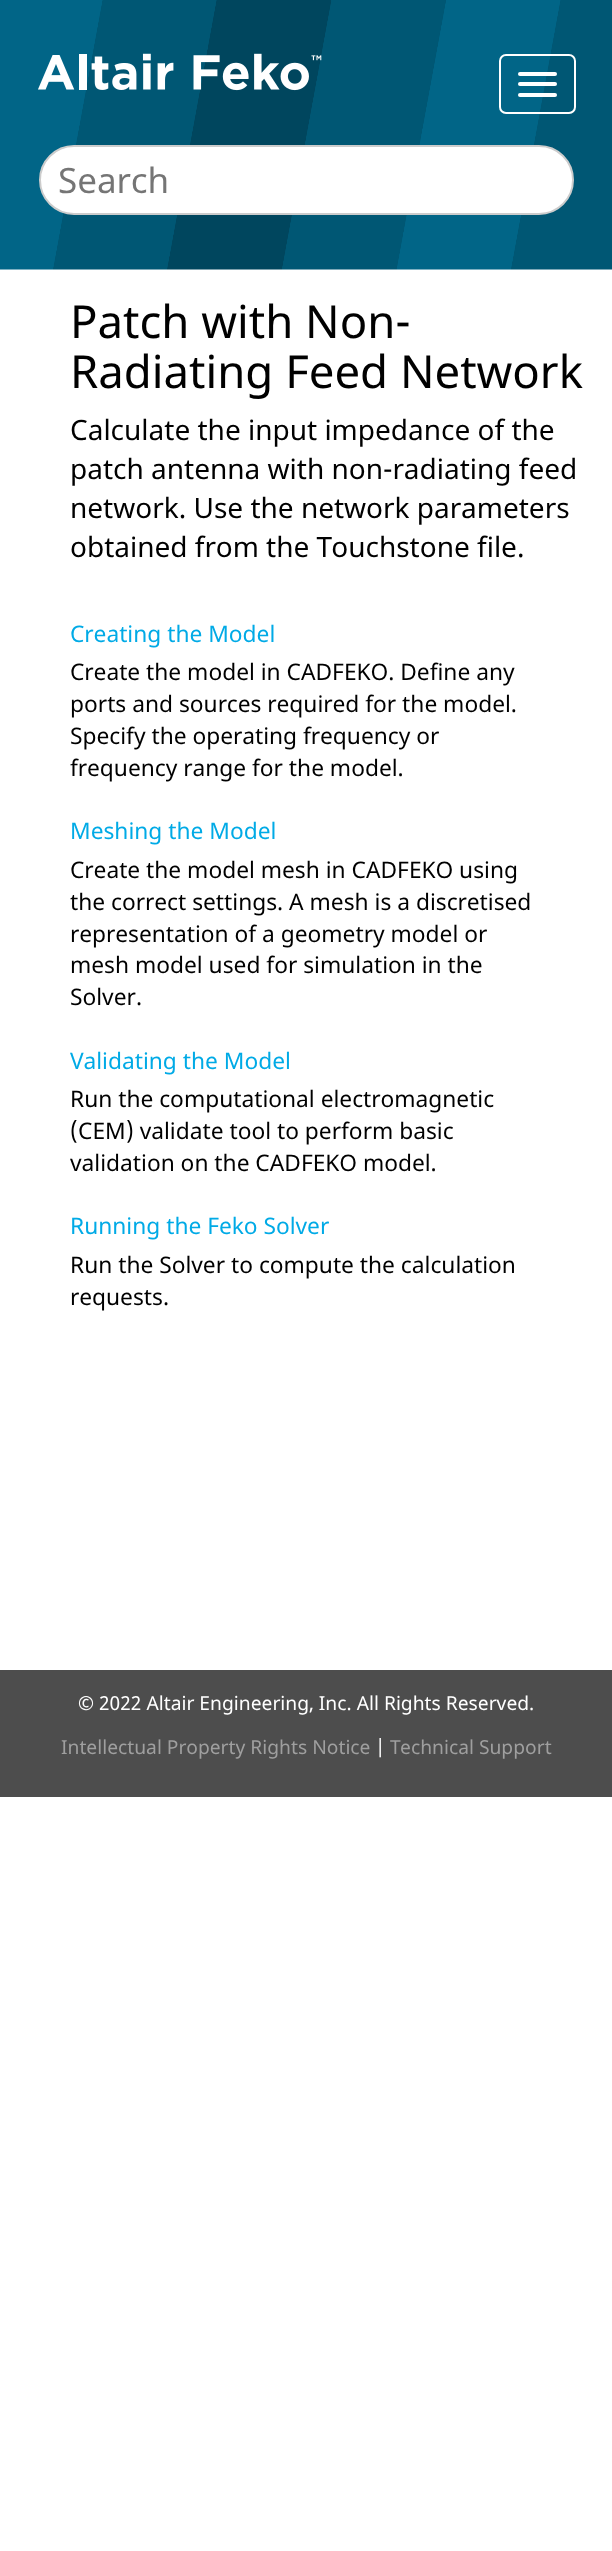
<svg xmlns="http://www.w3.org/2000/svg" width="612" height="2551">
<rect width="100%" height="100%" fill="#fff"/>
<image x="0" y="0" width="612" height="270" href="media/1.png"/>
<image x="38" y="53" width="284" height="38" href="media/2.png"/>
<rect x="500" y="55" width="75" height="58" rx="6" fill="none" stroke="#fff" stroke-width="2"/>
<rect x="518" y="72" width="39" height="4" rx="2" fill="#fff"/>
<rect x="518" y="82" width="39" height="4" rx="2" fill="#fff"/>
<rect x="518" y="93" width="39" height="4" rx="2" fill="#fff"/>
<rect x="40" y="146" width="533" height="68" rx="34" fill="#fff" stroke="#ccc" stroke-width="2"/>
<text x="58" y="193" style="font-family:Noto Sans;font-size:35px;fill:#757575">Search</text>
<text x="70" y="338" style="font-family:Noto Sans;font-size:45.5px;fill:#000">Patch with Non-</text>
<text x="70" y="388" style="font-family:Noto Sans;font-size:45.5px;fill:#000">Radiating Feed Network</text>
<text x="70" y="440" style="font-family:Noto Sans;font-size:28px;fill:#000">Calculate the input impedance of the</text>
<text x="70" y="479" style="font-family:Noto Sans;font-size:28px;fill:#000">patch antenna with non-radiating feed</text>
<text x="70" y="518" style="font-family:Noto Sans;font-size:28px;fill:#000">network. Use the network parameters</text>
<text x="70" y="557" style="font-family:Noto Sans;font-size:28px;fill:#000">obtained from the Touchstone file.</text>
<text x="70" y="642" style="font-family:Noto Sans;font-size:22.75px;fill:#00aae6">Creating the Model</text>
<text x="70" y="680" style="font-family:Noto Sans;font-size:22.75px;fill:#000">Create the model in CADFEKO. Define any</text>
<text x="70" y="712" style="font-family:Noto Sans;font-size:22.75px;fill:#000">ports and sources required for the model.</text>
<text x="70" y="744" style="font-family:Noto Sans;font-size:22.75px;fill:#000">Specify the operating frequency or</text>
<text x="70" y="776" style="font-family:Noto Sans;font-size:22.75px;fill:#000">frequency range for the model.</text>
<text x="70" y="839" style="font-family:Noto Sans;font-size:22.75px;fill:#00aae6">Meshing the Model</text>
<text x="70" y="878" style="font-family:Noto Sans;font-size:22.75px;fill:#000">Create the model mesh in CADFEKO using</text>
<text x="70" y="910" style="font-family:Noto Sans;font-size:22.75px;fill:#000">the correct settings. A mesh is a discretised</text>
<text x="70" y="942" style="font-family:Noto Sans;font-size:22.75px;fill:#000">representation of a geometry model or</text>
<text x="70" y="973" style="font-family:Noto Sans;font-size:22.75px;fill:#000">mesh model used for simulation in the</text>
<text x="70" y="1005" style="font-family:Noto Sans;font-size:22.75px;fill:#000">Solver.</text>
<text x="70" y="1069" style="font-family:Noto Sans;font-size:22.75px;fill:#00aae6">Validating the Model</text>
<text x="70" y="1107" style="font-family:Noto Sans;font-size:22.75px;fill:#000">Run the computational electromagnetic</text>
<text x="70" y="1139" style="font-family:Noto Sans;font-size:22.75px;fill:#000">(CEM) validate tool to perform basic</text>
<text x="70" y="1171" style="font-family:Noto Sans;font-size:22.75px;fill:#000">validation on the CADFEKO model.</text>
<text x="70" y="1234" style="font-family:Noto Sans;font-size:22.75px;fill:#00aae6">Running the Feko Solver</text>
<text x="70" y="1273" style="font-family:Noto Sans;font-size:22.75px;fill:#000">Run the Solver to compute the calculation</text>
<text x="70" y="1305" style="font-family:Noto Sans;font-size:22.75px;fill:#000">requests.</text>
<rect y="1670" width="612" height="127" fill="#4d4d4d"/>
<text x="78" y="1710" style="font-family:Noto Sans;font-size:19.25px;fill:#fff">© 2022 Altair Engineering, Inc. All Rights Reserved.</text>
<text x="61" y="1754" style="font-family:Noto Sans;font-size:19.25px;fill:#9f9f9f">Intellectual Property Rights Notice</text>
<text x="375" y="1754" style="font-family:Noto Sans;font-size:19.25px;fill:#fff">|</text>
<text x="390" y="1754" style="font-family:Noto Sans;font-size:19.25px;fill:#9f9f9f">Technical Support</text>
</svg>
